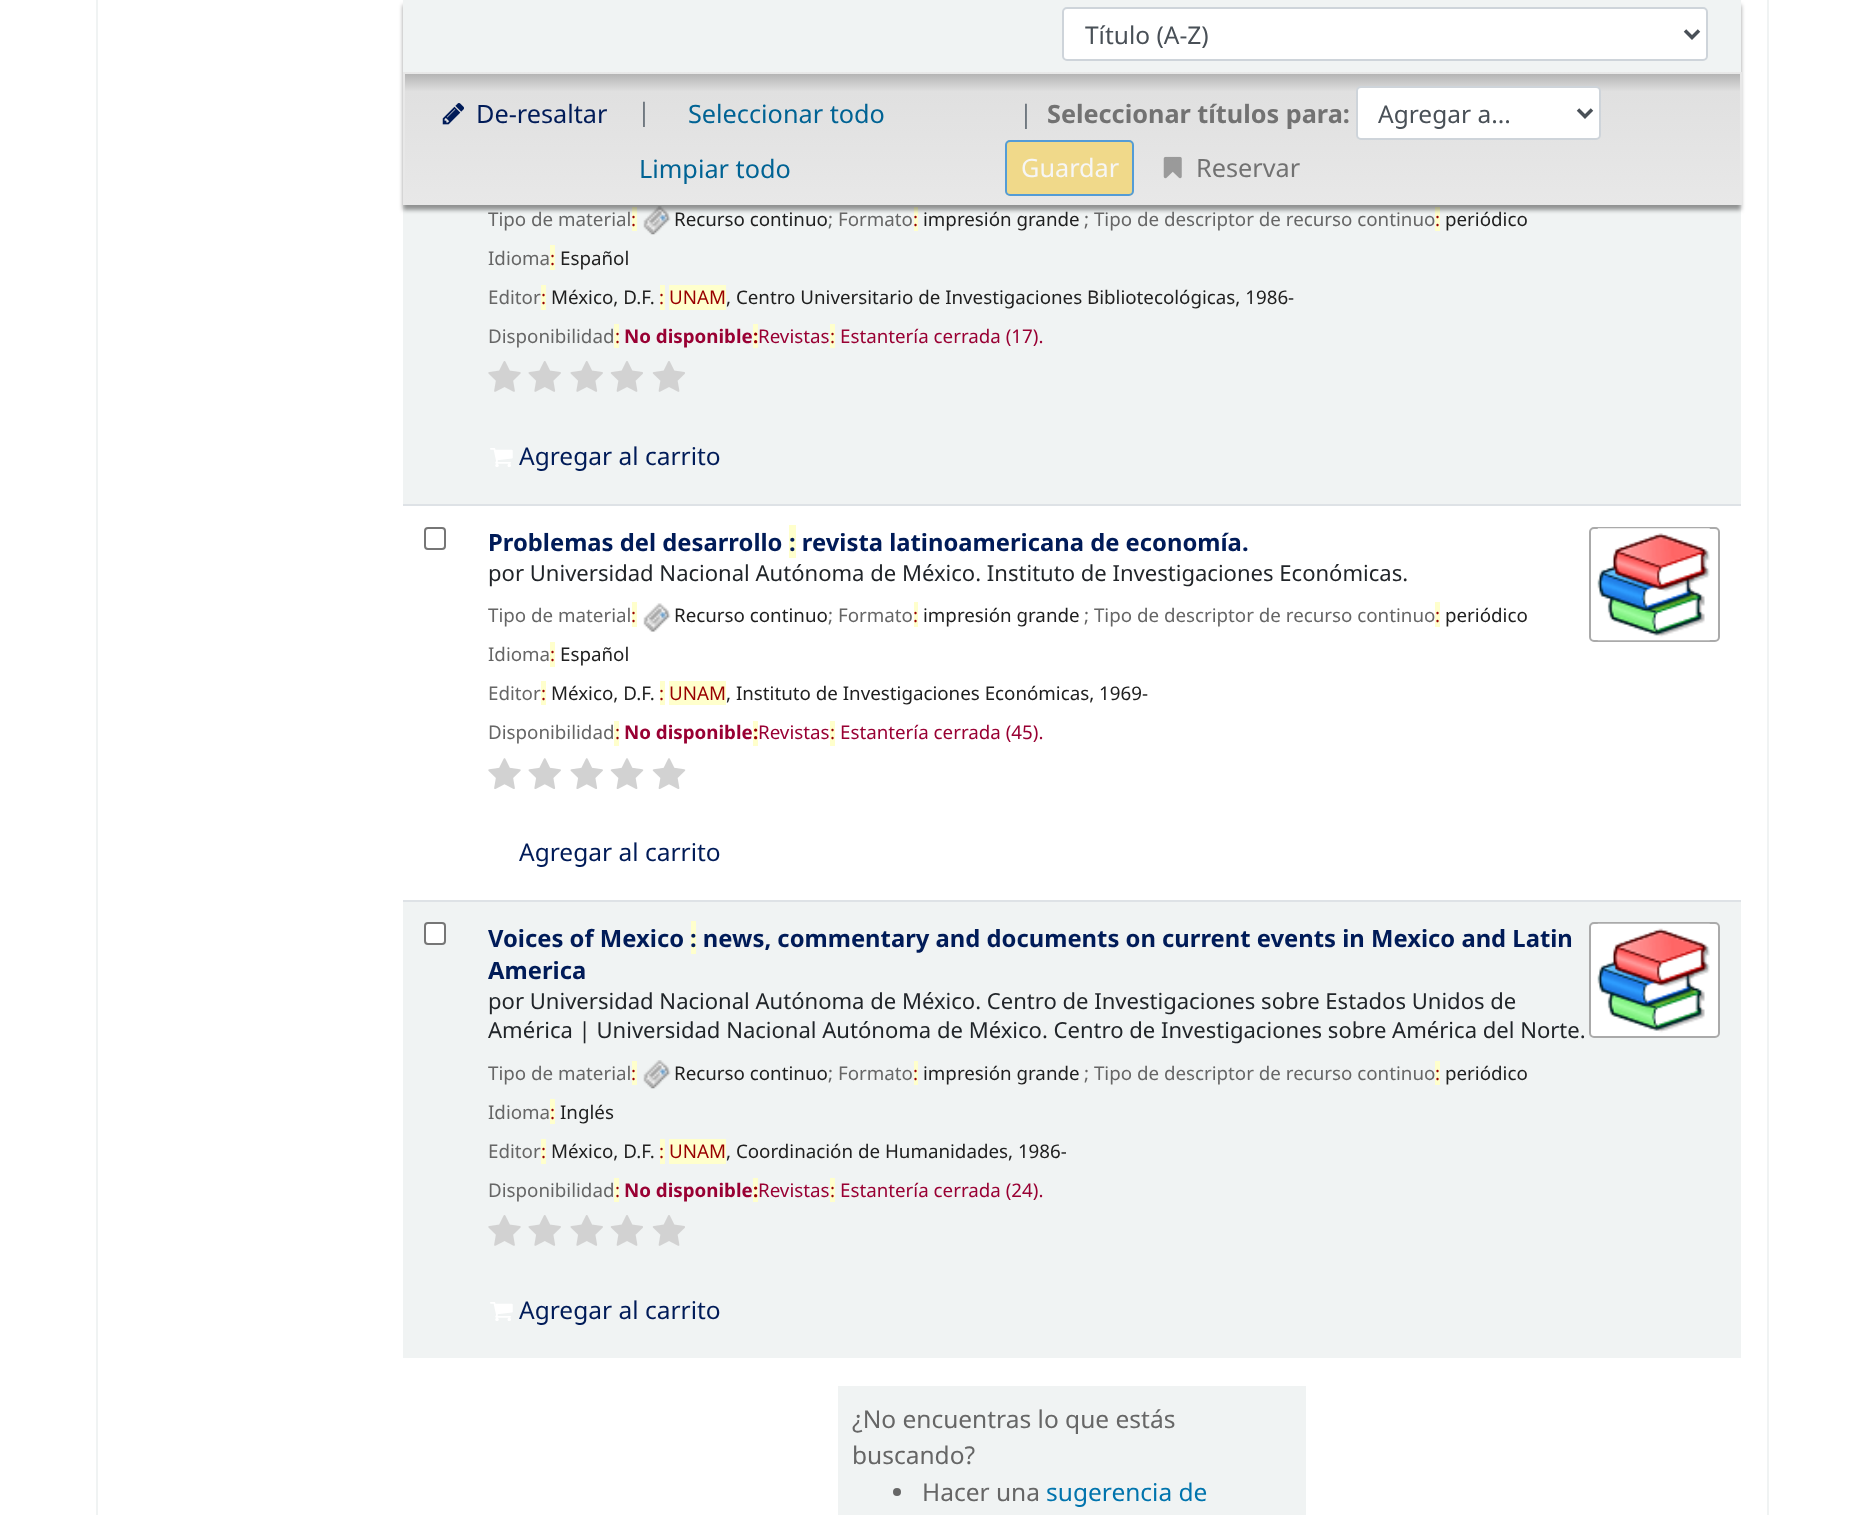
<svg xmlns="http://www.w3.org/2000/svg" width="1864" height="1515">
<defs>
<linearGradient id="g1" gradientUnits="userSpaceOnUse" x1="1072" y1="-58" x2="1072" y2="74"><stop offset="0" stop-color="#b2b2b2"/><stop offset="0.14" stop-color="#e0e0e0"/><stop offset="1" stop-color="#e8e8e8"/></linearGradient>
<linearGradient id="g2" gradientUnits="userSpaceOnUse" x1="1072" y1="73" x2="1072" y2="205"><stop offset="0" stop-color="#b2b2b2"/><stop offset="0.14" stop-color="#e0e0e0"/><stop offset="1" stop-color="#e8e8e8"/></linearGradient>
</defs>
<rect width="100%" height="100%" fill="#fff"/>
<rect x="97" y="-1" width="1671" height="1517" fill="none" stroke="#f0f3f3" stroke-width="2"/>
<rect x="403" y="205" width="1338" height="299" fill="#f0f3f3"/>
<rect x="632" y="207" width="5" height="24" fill="#ffc"/>
<image x="643" y="206" width="28" height="29" href="media/3.png"/>
<rect x="914" y="207" width="4" height="24" fill="#ffc"/>
<rect x="1435" y="207" width="5" height="24" fill="#ffc"/>
<rect x="403" y="5" width="1338" height="205" fill="#00000066" filter="blur(2px)"/>
<rect x="403" width="1338" height="72" fill="#f0f3f3"/>
<rect x="1063" y="8" width="644" height="52" rx="4" fill="#fff" stroke="#ced4da" stroke-width="2"/>
<path d="M1685 30.5l7 7l7-7" fill="none" stroke="#495057" stroke-width="3.5"/>
<text x="1085" y="44" style="font-family:Noto Sans;font-size:24.5px;fill:#495057">Título (A-Z)</text>
<rect x="403" y="72" width="1338" height="2" fill="url(#g1)"/>
<rect x="405" y="74" width="1335" height="131" fill="url(#g2)"/>
<rect x="1740" y="72" width="2" height="133" fill="#e8e8e8"/>
<rect x="403" y="72" width="2" height="133" fill="#e8e8e8"/>
<image x="442" y="103" width="22" height="22" href="media/1.png"/>
<text x="476" y="123" style="font-family:Noto Sans;font-size:25.25px;fill:#001b58">De-resaltar</text>
<text x="637" y="121" style="font-family:Noto Sans;font-size:25.25px;fill:#6c757d">|</text>
<text x="688" y="123" style="font-family:Noto Sans;font-size:25.25px;fill:#006394">Seleccionar todo</text>
<text x="639" y="178" style="font-family:Noto Sans;font-size:25.25px;fill:#006394">Limpiar todo</text>
<text x="1019" y="123" style="font-family:Noto Sans;font-size:25.25px;fill:#6c757d">|</text>
<text x="1047" y="123" style="font-family:Noto Sans;font-size:25.25px;font-weight:bold;fill:#727272">Seleccionar títulos para:</text>
<rect x="1357" y="87" width="243" height="52" rx="4" fill="#fff" stroke="#ced4da" stroke-width="2"/>
<path d="M1578 109.5l7 7l7-7" fill="none" stroke="#495057" stroke-width="3.5"/>
<text x="1378" y="123" style="font-family:Noto Sans;font-size:24.5px;fill:#495057">Agregar a...</text>
<rect x="1005" y="140" width="129" height="56" rx="5" fill="#ffffffa6"/>
<rect x="1005" y="140" width="129" height="56" rx="5" fill="#edca50a6"/>
<rect x="1006" y="141" width="127" height="54" rx="4" fill="none" stroke="#007bffa6" stroke-width="2"/>
<text x="1021" y="177" style="font-family:Noto Sans;font-size:25.25px;fill:#f6f6f6">Guardar</text>
<image x="1163" y="156" width="19" height="23" href="media/2.png"/>
<text x="1196" y="177" style="font-family:Noto Sans;font-size:25.25px;fill:#727272">Reservar</text>
<text x="488" y="226" style="font-family:Noto Sans;font-size:18.75px;fill:#666">Tipo de material</text>
<text x="631" y="226" style="font-family:Noto Sans;font-size:18.75px;fill:#900">:</text>
<text x="674" y="226" style="font-family:Noto Sans;font-size:18.75px;fill:#202020">Recurso continuo</text>
<text x="828" y="226" style="font-family:Noto Sans;font-size:18.75px;fill:#666">; Formato</text>
<text x="913" y="226" style="font-family:Noto Sans;font-size:18.75px;fill:#900">:</text>
<text x="923" y="226" style="font-family:Noto Sans;font-size:18.75px;fill:#202020">impresión grande</text>
<text x="1084" y="226" style="font-family:Noto Sans;font-size:18.75px;fill:#666">; Tipo de descriptor de recurso continuo</text>
<text x="1435" y="226" style="font-family:Noto Sans;font-size:18.75px;fill:#900">:</text>
<text x="1445" y="226" style="font-family:Noto Sans;font-size:18.75px;fill:#202020">periódico</text>
<text x="488" y="265" style="font-family:Noto Sans;font-size:18.75px;fill:#666">Idioma</text>
<rect x="550" y="245" width="5" height="25" fill="#ffc"/>
<text x="550" y="265" style="font-family:Noto Sans;font-size:18.75px;fill:#900">:</text>
<text x="560" y="265" style="font-family:Noto Sans;font-size:18.75px;fill:#202020">Español</text>
<text x="488" y="304" style="font-family:Noto Sans;font-size:18.75px;fill:#666">Editor</text>
<rect x="541" y="285" width="5" height="25" fill="#ffc"/>
<text x="541" y="304" style="font-family:Noto Sans;font-size:18.75px;fill:#900">:</text>
<text x="551" y="304" style="font-family:Noto Sans;font-size:18.75px;fill:#202020">México, D.F.</text>
<rect x="660" y="285" width="5" height="25" fill="#ffc"/>
<text x="659" y="304" style="font-family:Noto Sans;font-size:18.75px;fill:#900">:</text>
<rect x="669" y="285" width="57" height="25" fill="#ffc"/>
<text x="669" y="304" style="font-family:Noto Sans;font-size:18.75px;fill:#900">UNAM</text>
<text x="726" y="304" style="font-family:Noto Sans;font-size:18.75px;fill:#202020">, Centro Universitario de Investigaciones Bibliotecológicas, 1986-</text>
<text x="488" y="343" style="font-family:Noto Sans;font-size:18.75px;fill:#666">Disponibilidad</text>
<rect x="614" y="324" width="5" height="24" fill="#ffc"/>
<text x="615" y="343" style="font-family:Noto Sans;font-size:18.75px;fill:#900">:</text>
<text x="624" y="343" style="font-family:Noto Sans;font-size:18.75px;font-weight:bold;fill:#903">No disponible</text>
<rect x="753" y="324" width="5" height="24" fill="#ffc"/>
<text x="753" y="343" style="font-family:Noto Sans;font-size:18.75px;font-weight:bold;fill:#900">:</text>
<text x="758" y="343" style="font-family:Noto Sans;font-size:18.75px;fill:#903">Revistas</text>
<rect x="830" y="324" width="5" height="24" fill="#ffc"/>
<text x="830" y="343" style="font-family:Noto Sans;font-size:18.75px;fill:#900">:</text>
<text x="840" y="343" style="font-family:Noto Sans;font-size:18.75px;fill:#903">Estantería cerrada (17).</text>
<image x="488" y="361" width="33" height="31" href="media/4.png"/>
<image x="528" y="361" width="33" height="31" href="media/5.png"/>
<image x="570" y="361" width="33" height="31" href="media/5.png"/>
<image x="610" y="361" width="33" height="31" href="media/6.png"/>
<image x="652" y="361" width="33" height="31" href="media/6.png"/>
<image x="490" y="448" width="23" height="19" href="media/7.png"/>
<text x="519" y="465" style="font-family:Noto Sans;font-size:24.5px;fill:#001b58">Agregar al carrito</text>
<rect x="425" y="528" width="20" height="21" rx="3" fill="none" stroke="#767676" stroke-width="2"/>
<rect x="403" y="504" width="1338" height="2" fill="#dee2e6"/>
<text x="488" y="551" style="font-family:Noto Sans;font-size:23.8px;font-weight:bold;fill:#001b58">Problemas del desarrollo</text>
<rect x="789" y="525" width="7" height="33" fill="#ffc"/>
<text x="789" y="551" style="font-family:Noto Sans;font-size:23.8px;font-weight:bold;fill:#001b58">: revista latinoamericana de economía.</text>
<text x="488" y="581" style="font-family:Noto Sans;font-size:22.05px;fill:#212529">por Universidad Nacional Autónoma de México. Instituto de Investigaciones Económicas.</text>
<text x="488" y="622" style="font-family:Noto Sans;font-size:18.75px;fill:#666">Tipo de material</text>
<rect x="632" y="602" width="5" height="25" fill="#ffc"/>
<text x="631" y="622" style="font-family:Noto Sans;font-size:18.75px;fill:#900">:</text>
<image x="643" y="603" width="28" height="29" href="media/8.png"/>
<text x="674" y="622" style="font-family:Noto Sans;font-size:18.75px;fill:#202020">Recurso continuo</text>
<text x="828" y="622" style="font-family:Noto Sans;font-size:18.75px;fill:#666">; Formato</text>
<rect x="914" y="602" width="4" height="25" fill="#ffc"/>
<text x="913" y="622" style="font-family:Noto Sans;font-size:18.75px;fill:#900">:</text>
<text x="923" y="622" style="font-family:Noto Sans;font-size:18.75px;fill:#202020">impresión grande</text>
<text x="1084" y="622" style="font-family:Noto Sans;font-size:18.75px;fill:#666">; Tipo de descriptor de recurso continuo</text>
<rect x="1435" y="602" width="5" height="25" fill="#ffc"/>
<text x="1435" y="622" style="font-family:Noto Sans;font-size:18.75px;fill:#900">:</text>
<text x="1445" y="622" style="font-family:Noto Sans;font-size:18.75px;fill:#202020">periódico</text>
<text x="488" y="661" style="font-family:Noto Sans;font-size:18.75px;fill:#666">Idioma</text>
<rect x="550" y="642" width="5" height="25" fill="#ffc"/>
<text x="550" y="661" style="font-family:Noto Sans;font-size:18.75px;fill:#900">:</text>
<text x="560" y="661" style="font-family:Noto Sans;font-size:18.75px;fill:#202020">Español</text>
<text x="488" y="700" style="font-family:Noto Sans;font-size:18.75px;fill:#666">Editor</text>
<rect x="541" y="681" width="5" height="24" fill="#ffc"/>
<text x="541" y="700" style="font-family:Noto Sans;font-size:18.75px;fill:#900">:</text>
<text x="551" y="700" style="font-family:Noto Sans;font-size:18.75px;fill:#202020">México, D.F.</text>
<rect x="660" y="681" width="5" height="24" fill="#ffc"/>
<text x="659" y="700" style="font-family:Noto Sans;font-size:18.75px;fill:#900">:</text>
<rect x="669" y="681" width="57" height="24" fill="#ffc"/>
<text x="669" y="700" style="font-family:Noto Sans;font-size:18.75px;fill:#900">UNAM</text>
<text x="726" y="700" style="font-family:Noto Sans;font-size:18.75px;fill:#202020">, Instituto de Investigaciones Económicas, 1969-</text>
<text x="488" y="739" style="font-family:Noto Sans;font-size:18.75px;fill:#666">Disponibilidad</text>
<rect x="614" y="721" width="5" height="25" fill="#ffc"/>
<text x="615" y="739" style="font-family:Noto Sans;font-size:18.75px;fill:#900">:</text>
<text x="624" y="739" style="font-family:Noto Sans;font-size:18.75px;font-weight:bold;fill:#903">No disponible</text>
<rect x="753" y="721" width="5" height="25" fill="#ffc"/>
<text x="753" y="739" style="font-family:Noto Sans;font-size:18.75px;font-weight:bold;fill:#900">:</text>
<text x="758" y="739" style="font-family:Noto Sans;font-size:18.75px;fill:#903">Revistas</text>
<rect x="830" y="721" width="5" height="25" fill="#ffc"/>
<text x="830" y="739" style="font-family:Noto Sans;font-size:18.75px;fill:#900">:</text>
<text x="840" y="739" style="font-family:Noto Sans;font-size:18.75px;fill:#903">Estantería cerrada (45).</text>
<image x="488" y="758" width="33" height="31" href="media/9.png"/>
<image x="528" y="758" width="33" height="31" href="media/10.png"/>
<image x="570" y="758" width="33" height="31" href="media/10.png"/>
<image x="610" y="758" width="34" height="31" href="media/11.png"/>
<image x="652" y="758" width="34" height="31" href="media/11.png"/>
<text x="519" y="861" style="font-family:Noto Sans;font-size:24.5px;fill:#001b58">Agregar al carrito</text>
<rect x="1590" y="528" width="129" height="113" rx="4" fill="none" stroke="#aaa" stroke-width="2"/>
<image x="1597" y="528" width="113" height="113" href="media/12.png"/>
<rect x="403" y="902" width="1338" height="456" fill="#f0f3f3"/>
<rect x="425" y="923" width="20" height="21" rx="3" fill="#fff" stroke="#767676" stroke-width="2"/>
<rect x="403" y="900" width="1338" height="2" fill="#dee2e6"/>
<text x="488" y="947" style="font-family:Noto Sans;font-size:23.8px;font-weight:bold;fill:#001b58">Voices of Mexico</text>
<rect x="691" y="921" width="5" height="33" fill="#ffc"/>
<text x="690" y="947" style="font-family:Noto Sans;font-size:23.8px;font-weight:bold;fill:#001b58">: news, commentary and documents on current events in Mexico and Latin</text>
<text x="488" y="979" style="font-family:Noto Sans;font-size:23.8px;font-weight:bold;fill:#001b58">America</text>
<text x="488" y="1009" style="font-family:Noto Sans;font-size:22.05px;fill:#212529">por Universidad Nacional Autónoma de México. Centro de Investigaciones sobre Estados Unidos de</text>
<text x="488" y="1038" style="font-family:Noto Sans;font-size:22.05px;fill:#212529">América | Universidad Nacional Autónoma de México. Centro de Investigaciones sobre América del Norte.</text>
<text x="488" y="1080" style="font-family:Noto Sans;font-size:18.75px;fill:#666">Tipo de material</text>
<rect x="632" y="1061" width="5" height="24" fill="#ffc"/>
<text x="631" y="1080" style="font-family:Noto Sans;font-size:18.75px;fill:#900">:</text>
<image x="643" y="1060" width="28" height="29" href="media/3.png"/>
<text x="674" y="1080" style="font-family:Noto Sans;font-size:18.75px;fill:#202020">Recurso continuo</text>
<text x="828" y="1080" style="font-family:Noto Sans;font-size:18.75px;fill:#666">; Formato</text>
<rect x="914" y="1061" width="4" height="24" fill="#ffc"/>
<text x="913" y="1080" style="font-family:Noto Sans;font-size:18.75px;fill:#900">:</text>
<text x="923" y="1080" style="font-family:Noto Sans;font-size:18.75px;fill:#202020">impresión grande</text>
<text x="1084" y="1080" style="font-family:Noto Sans;font-size:18.75px;fill:#666">; Tipo de descriptor de recurso continuo</text>
<rect x="1435" y="1061" width="5" height="24" fill="#ffc"/>
<text x="1435" y="1080" style="font-family:Noto Sans;font-size:18.75px;fill:#900">:</text>
<text x="1445" y="1080" style="font-family:Noto Sans;font-size:18.75px;fill:#202020">periódico</text>
<text x="488" y="1119" style="font-family:Noto Sans;font-size:18.75px;fill:#666">Idioma</text>
<rect x="550" y="1099" width="5" height="25" fill="#ffc"/>
<text x="550" y="1119" style="font-family:Noto Sans;font-size:18.75px;fill:#900">:</text>
<text x="560" y="1119" style="font-family:Noto Sans;font-size:18.75px;fill:#202020">Inglés</text>
<text x="488" y="1158" style="font-family:Noto Sans;font-size:18.75px;fill:#666">Editor</text>
<rect x="541" y="1139" width="5" height="25" fill="#ffc"/>
<text x="541" y="1158" style="font-family:Noto Sans;font-size:18.75px;fill:#900">:</text>
<text x="551" y="1158" style="font-family:Noto Sans;font-size:18.75px;fill:#202020">México, D.F.</text>
<rect x="660" y="1139" width="5" height="25" fill="#ffc"/>
<text x="659" y="1158" style="font-family:Noto Sans;font-size:18.75px;fill:#900">:</text>
<rect x="669" y="1139" width="57" height="25" fill="#ffc"/>
<text x="669" y="1158" style="font-family:Noto Sans;font-size:18.75px;fill:#900">UNAM</text>
<text x="726" y="1158" style="font-family:Noto Sans;font-size:18.75px;fill:#202020">, Coordinación de Humanidades, 1986-</text>
<text x="488" y="1197" style="font-family:Noto Sans;font-size:18.75px;fill:#666">Disponibilidad</text>
<rect x="614" y="1178" width="5" height="24" fill="#ffc"/>
<text x="615" y="1197" style="font-family:Noto Sans;font-size:18.75px;fill:#900">:</text>
<text x="624" y="1197" style="font-family:Noto Sans;font-size:18.75px;font-weight:bold;fill:#903">No disponible</text>
<rect x="753" y="1178" width="5" height="24" fill="#ffc"/>
<text x="753" y="1197" style="font-family:Noto Sans;font-size:18.75px;font-weight:bold;fill:#900">:</text>
<text x="758" y="1197" style="font-family:Noto Sans;font-size:18.75px;fill:#903">Revistas</text>
<rect x="830" y="1178" width="5" height="24" fill="#ffc"/>
<text x="830" y="1197" style="font-family:Noto Sans;font-size:18.75px;fill:#900">:</text>
<text x="840" y="1197" style="font-family:Noto Sans;font-size:18.75px;fill:#903">Estantería cerrada (24).</text>
<image x="488" y="1215" width="33" height="31" href="media/4.png"/>
<image x="528" y="1215" width="33" height="31" href="media/5.png"/>
<image x="570" y="1215" width="33" height="31" href="media/5.png"/>
<image x="610" y="1215" width="33" height="31" href="media/6.png"/>
<image x="652" y="1215" width="33" height="31" href="media/6.png"/>
<image x="490" y="1302" width="23" height="19" href="media/7.png"/>
<text x="519" y="1319" style="font-family:Noto Sans;font-size:24.5px;fill:#001b58">Agregar al carrito</text>
<rect x="1590" y="923" width="129" height="114" rx="4" fill="#fff" stroke="#aaa" stroke-width="2"/>
<image x="1597" y="923" width="113" height="110" href="media/13.png"/>
<rect x="838" y="1386" width="468" height="129" fill="#f0f3f3"/>
<text x="852" y="1428" style="font-family:Noto Sans;font-size:24.5px;fill:#666">¿No encuentras lo que estás</text>
<text x="852" y="1464" style="font-family:Noto Sans;font-size:24.5px;fill:#666">buscando?</text>
<circle cx="897" cy="1492" r="4" fill="#666"/>
<text x="922" y="1501" style="font-family:Noto Sans;font-size:24.5px;fill:#666">Hacer una</text>
<text x="1046" y="1501" style="font-family:Noto Sans;font-size:24.5px;fill:#0074ad">sugerencia de</text>
</svg>
